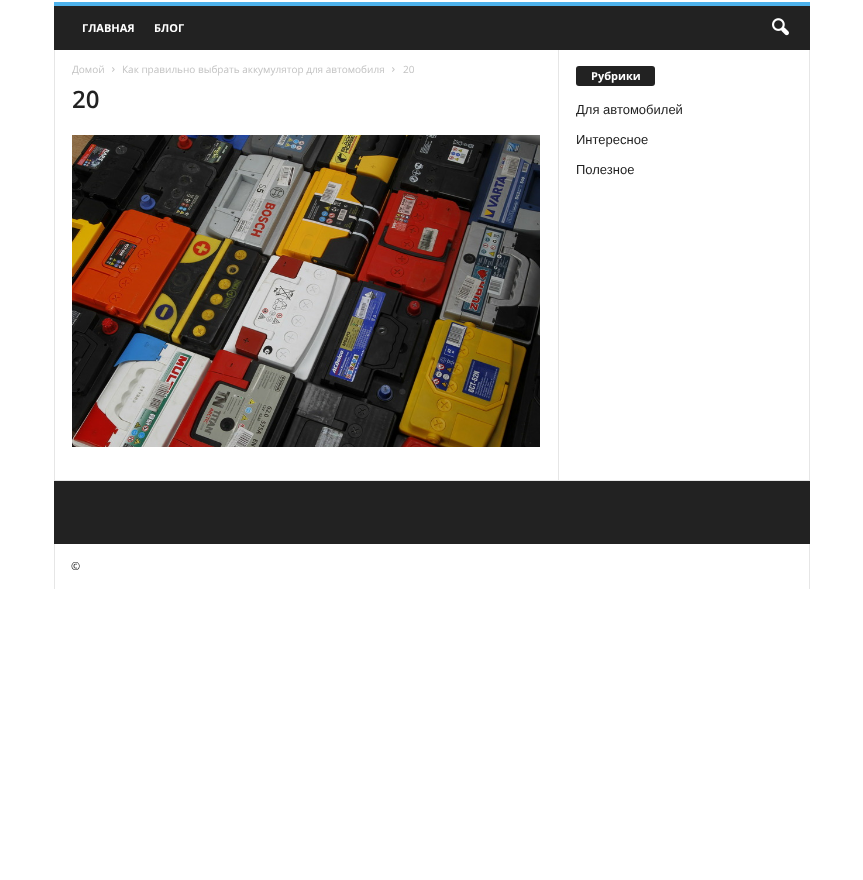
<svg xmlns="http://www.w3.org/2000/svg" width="863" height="880">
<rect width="100%" height="100%" fill="#fff"/>
<rect x="54" y="6" width="756" height="44" fill="#222"/>
<rect x="54" y="2" width="756" height="4" fill="#4db2ec"/>
<text x="82" y="32" style="font-family:Open Sans;font-size:11px;font-weight:bold;fill:#fff">ГЛАВНАЯ</text>
<text x="154" y="32" style="font-family:Open Sans;font-size:11px;font-weight:bold;fill:#fff">БЛОГ</text>
<image x="772" y="18" width="17" height="18" href="media/1.png"/>
<rect x="54" y="480" width="756" height="1" fill="#e6e6e6"/>
<rect x="54" y="50" width="1" height="431" fill="#e6e6e6"/>
<text x="72" y="73" style="font-family:Open Sans;font-size:10px;fill:#c3c3c3">Домой</text>
<image x="112" y="67" width="3" height="5" href="media/2.png"/>
<text x="122" y="73" style="font-family:Open Sans;font-size:10px;fill:#c3c3c3">Как правильно выбрать аккумулятор для автомобиля</text>
<image x="392" y="67" width="3" height="5" href="media/2.png"/>
<text x="403" y="73" style="font-family:Open Sans;font-size:10px;fill:#c3c3c3">20</text>
<text x="72" y="108" style="font-family:Open Sans;font-size:24px;font-weight:600;fill:#222">20</text>
<image x="72" y="135" width="468" height="312" href="media/3.png"/>
<rect x="558" y="50" width="1" height="431" fill="#e6e6e6"/>
<rect x="576" y="66" width="79" height="20" rx="3" fill="#222"/>
<text x="591" y="80" style="font-family:Open Sans;font-size:11px;font-weight:bold;fill:#fff">Рубрики</text>
<text x="576" y="114" style="font-family:Liberation Sans;font-size:13px;fill:#222">Для автомобилей</text>
<text x="576" y="144" style="font-family:Liberation Sans;font-size:13px;fill:#222">Интересное</text>
<text x="576" y="174" style="font-family:Liberation Sans;font-size:13px;fill:#222">Полезное</text>
<rect x="809" y="50" width="1" height="430" fill="#e6e6e6"/>
<rect x="54" y="481" width="756" height="63" fill="#222"/>
<rect x="54" y="544" width="1" height="45" fill="#e6e6e6"/>
<text x="71" y="570" style="font-family:Open Sans;font-size:11px;fill:#222">©</text>
<rect x="809" y="544" width="1" height="45" fill="#e6e6e6"/>
</svg>
